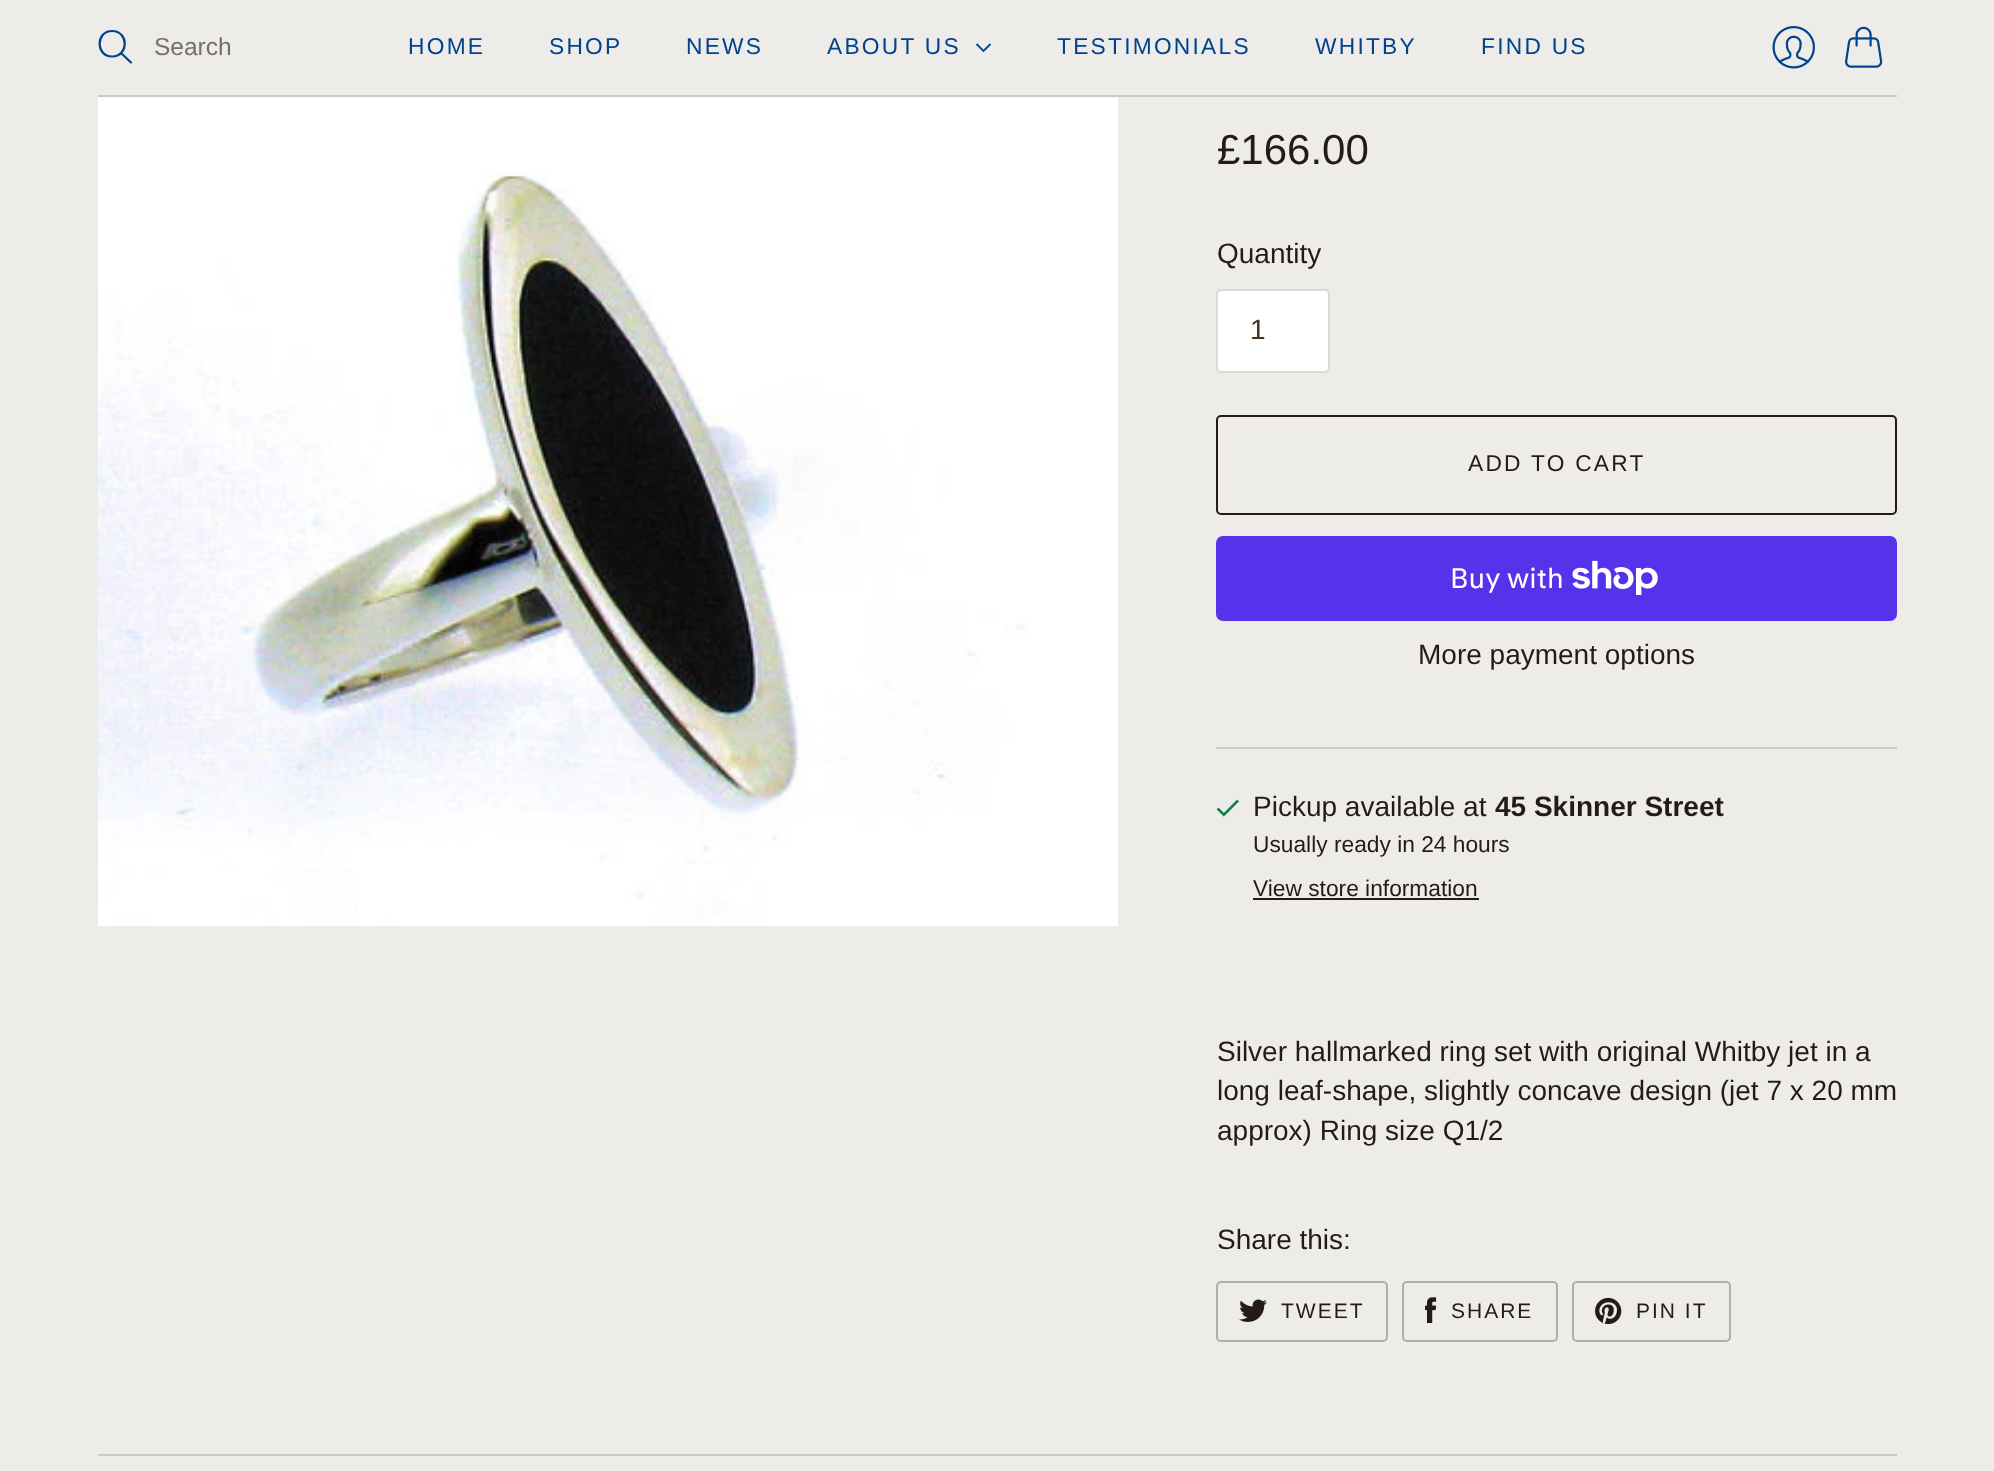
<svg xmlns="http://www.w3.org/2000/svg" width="1994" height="1471">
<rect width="100%" height="100%" fill="#eeece8"/>
<path d="M112 56.5c17 0 17-25.5 0-25.5c-16.5 0-16.5 25.5 0 25.5zm19 6l-9.5-9" fill="none" stroke="#00428c" stroke-width="2.2" stroke-linecap="round" stroke-linejoin="round"/>
<text x="154" y="55" style="font-family:Liberation Sans;font-size:24.5px;fill:#756f69">Search</text>
<image x="1772" y="26" width="43" height="43" href="media/1.png"/>
<image x="1845" y="26" width="38" height="42" href="media/2.png"/>
<rect x="98" y="95" width="1799" height="2" fill="#cdc9c0"/>
<text x="408" y="54" style="font-family:Liberation Sans;font-size:22.75px;letter-spacing:2.25px;fill:#00428c">HOME</text>
<text x="549" y="54" style="font-family:Liberation Sans;font-size:22.75px;letter-spacing:2.25px;fill:#00428c">SHOP</text>
<text x="686" y="54" style="font-family:Liberation Sans;font-size:22.75px;letter-spacing:2.25px;fill:#00428c">NEWS</text>
<text x="827" y="54" style="font-family:Liberation Sans;font-size:22.75px;letter-spacing:2.25px;fill:#00428c">ABOUT US</text>
<path d="M976.5 44l7 7l7-7" fill="none" stroke="#00428c" stroke-width="1.8"/>
<text x="1057" y="54" style="font-family:Liberation Sans;font-size:22.75px;letter-spacing:2.25px;fill:#00428c">TESTIMONIALS</text>
<text x="1315" y="54" style="font-family:Liberation Sans;font-size:22.75px;letter-spacing:2.25px;fill:#00428c">WHITBY</text>
<text x="1481" y="54" style="font-family:Liberation Sans;font-size:22.75px;letter-spacing:2.25px;fill:#00428c">FIND US</text>
<image x="98" y="97" width="1020" height="829" href="media/3.png"/>
<text x="1217" y="164" style="font-family:Liberation Sans;font-size:42px;fill:#241c14">£166.00</text>
<text x="1217" y="263" style="font-family:Liberation Sans;font-size:28px;fill:#241c14">Quantity</text>
<rect x="1217" y="290" width="112" height="82" rx="4" fill="#fff" stroke="#ddd9d3" stroke-width="2"/>
<text x="1250" y="339" style="font-family:Liberation Sans;font-size:28px;fill:#46321f">1</text>
<rect x="1217" y="416" width="679" height="98" rx="4" fill="none" stroke="#241c14" stroke-width="2"/>
<text x="1468" y="471" style="font-family:Liberation Sans;font-size:22.75px;letter-spacing:2.25px;fill:#241c14">ADD TO CART</text>
<rect x="1216" y="536" width="681" height="85" rx="7" fill="#5433eb"/>
<text x="1450" y="588" style="font-family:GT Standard;font-size:28px;fill:#fff">Buy with</text>
<image x="1572" y="560" width="86" height="35" href="media/4.png"/>
<text x="1418" y="664" style="font-family:Liberation Sans;font-size:28px;fill:#241c14">More payment options</text>
<rect x="1216" y="747" width="681" height="2" fill="#cdc9c0"/>
<image x="1216" y="799" width="23" height="18" href="media/5.png"/>
<text x="1253" y="816" style="font-family:Liberation Sans;font-size:28px;fill:#241c14">Pickup available at</text>
<text x="1495" y="816" style="font-family:Liberation Sans;font-size:28px;font-weight:bold;fill:#241c14">45 Skinner Street</text>
<text x="1253" y="852" style="font-family:Liberation Sans;font-size:22.75px;fill:#241c14">Usually ready in 24 hours</text>
<text x="1253" y="896" style="font-family:Liberation Sans;font-size:22.75px;fill:#241c14">View store information</text>
<rect x="1253" y="898" width="226" height="2" fill="#241c14"/>
<text x="1217" y="1061" style="font-family:Liberation Sans;font-size:28px;fill:#241c14">Silver hallmarked ring set with original Whitby jet in a</text>
<text x="1217" y="1100" style="font-family:Liberation Sans;font-size:28px;fill:#241c14">long leaf-shape, slightly concave design (jet 7 x 20 mm</text>
<text x="1217" y="1140" style="font-family:Liberation Sans;font-size:28px;fill:#241c14">approx) Ring size Q1/2</text>
<text x="1217" y="1249" style="font-family:Liberation Sans;font-size:28px;fill:#241c14">Share this:</text>
<rect x="1217" y="1282" width="170" height="59" rx="4" fill="none" stroke="#b1aea8" stroke-width="2"/>
<image x="1239" y="1299" width="28" height="23" href="media/6.png"/>
<text x="1281" y="1318" style="font-family:Liberation Sans;font-size:21px;letter-spacing:2px;fill:#241c14">TWEET</text>
<rect x="1403" y="1282" width="154" height="59" rx="4" fill="none" stroke="#b1aea8" stroke-width="2"/>
<image x="1425" y="1297" width="12" height="26" href="media/7.png"/>
<text x="1451" y="1318" style="font-family:Liberation Sans;font-size:21px;letter-spacing:2px;fill:#241c14">SHARE</text>
<rect x="1573" y="1282" width="157" height="59" rx="4" fill="none" stroke="#b1aea8" stroke-width="2"/>
<image x="1595" y="1297" width="27" height="28" href="media/8.png"/>
<text x="1636" y="1318" style="font-family:Liberation Sans;font-size:21px;letter-spacing:2px;fill:#241c14">PIN IT</text>
<rect x="98" y="1454" width="1799" height="2" fill="#cdc9c0"/>
</svg>
